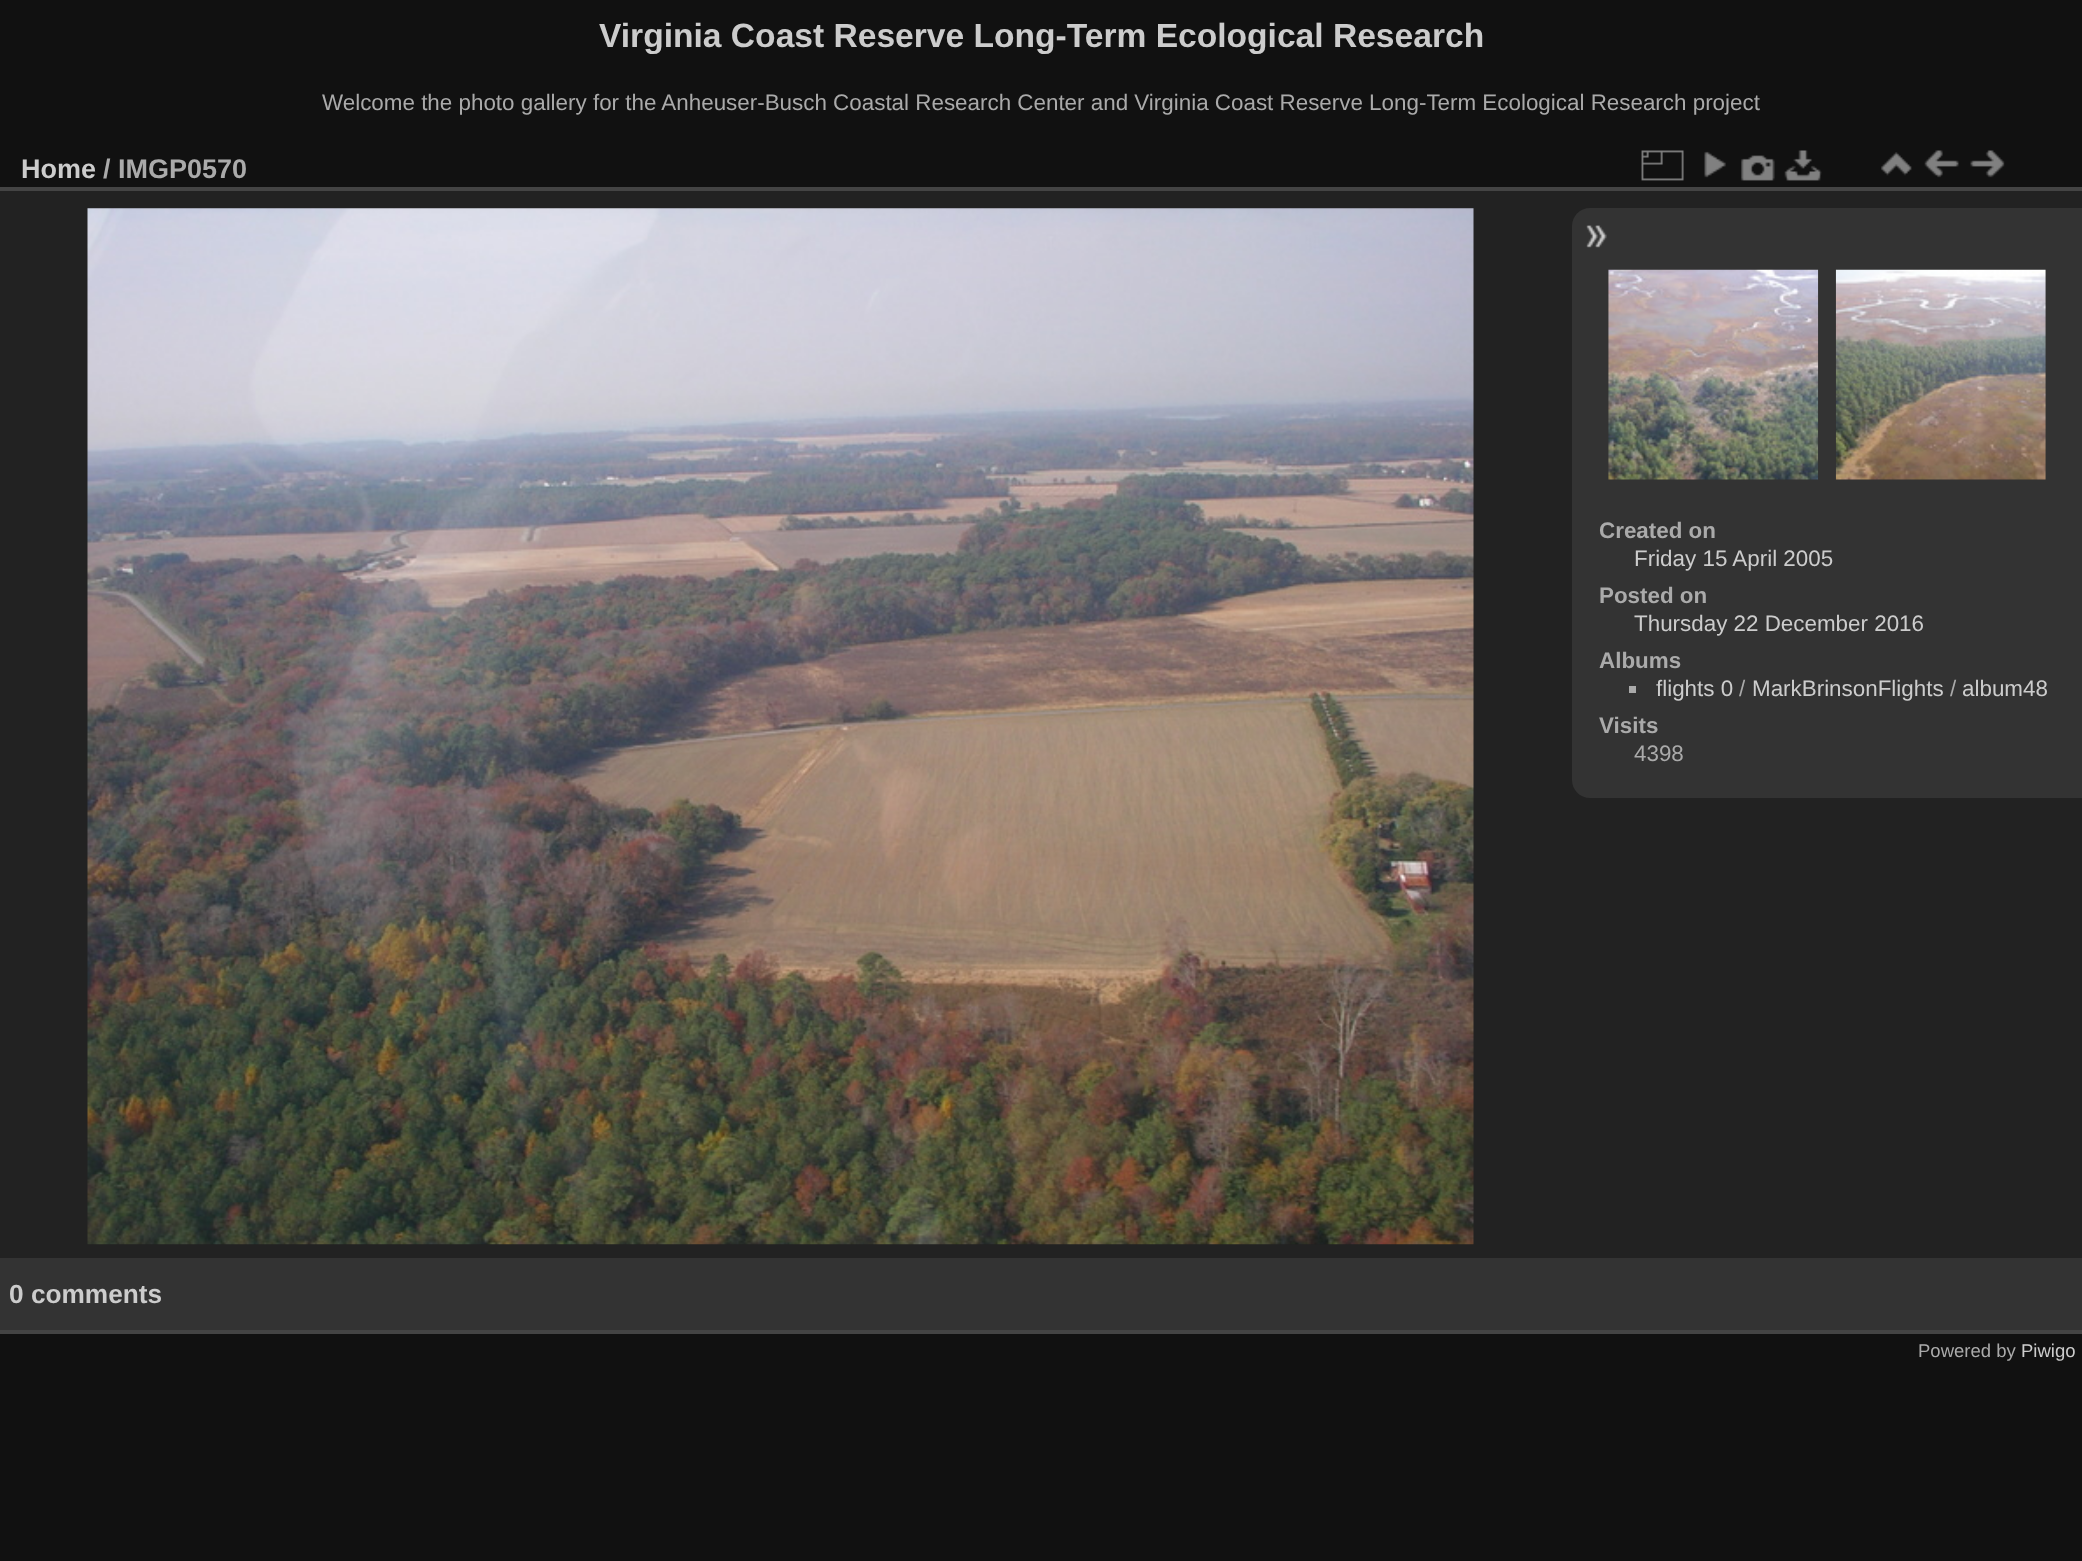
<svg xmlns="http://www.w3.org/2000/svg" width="2082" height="1561">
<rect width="100%" height="100%" fill="#111"/>
<text x="599" y="47" style="font-family:Liberation Sans;font-size:33.6px;font-weight:bold;fill:#ccc">Virginia Coast Reserve Long-Term Ecological Research</text>
<text x="322" y="110" style="font-family:Liberation Sans;font-size:22.4px;fill:#aaa">Welcome the photo gallery for the Anheuser-Busch Coastal Research Center and Virginia Coast Reserve Long-Term Ecological Research project</text>
<rect y="191" width="2082" height="1067" fill="#222"/>
<rect y="1330" width="2082" height="4" fill="#444"/>
<rect y="187" width="2082" height="4" fill="#444"/>
<text x="21" y="178" style="font-family:Liberation Sans;font-size:27px;font-weight:bold;fill:#ccc">Home</text>
<text x="103" y="178" style="font-family:Liberation Sans;font-size:27px;font-weight:bold;fill:#aaa">/ IMGP0570</text>
<image x="1641" y="150" width="43" height="31" href="media/1.png"/>
<image x="1704" y="151" width="22" height="27" href="media/2.png"/>
<image x="1741" y="155" width="34" height="26" href="media/3.png"/>
<image x="1784" y="150" width="38" height="31" href="media/4.png"/>
<image x="1881" y="152" width="31" height="24" href="media/5.png"/>
<image x="1924" y="150" width="35" height="28" href="media/6.png"/>
<image x="1970" y="150" width="35" height="28" href="media/7.png"/>
<image x="87" y="208" width="1387" height="1037" href="media/8.png"/>
<path d="M1590 208h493v590h-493c-10 0-18-8-18-18v-554c0-10 8-18 18-18z" fill="#333"/>
<image x="1586" y="225" width="21" height="23" href="media/9.png"/>
<image x="1608" y="269" width="211" height="211" href="media/10.png"/>
<image x="1835" y="269" width="211" height="211" href="media/11.png"/>
<text x="1599" y="538" style="font-family:Liberation Sans;font-size:22.4px;font-weight:bold;fill:#aaa">Created on</text>
<text x="1634" y="566" style="font-family:Liberation Sans;font-size:22.4px;fill:#ccc">Friday 15 April 2005</text>
<text x="1599" y="603" style="font-family:Liberation Sans;font-size:22.4px;font-weight:bold;fill:#aaa">Posted on</text>
<text x="1634" y="631" style="font-family:Liberation Sans;font-size:22.4px;fill:#ccc">Thursday 22 December 2016</text>
<text x="1599" y="668" style="font-family:Liberation Sans;font-size:22.4px;font-weight:bold;fill:#aaa">Albums</text>
<rect x="1629" y="686" width="7" height="7" fill="#aaa"/>
<text x="1656" y="696" style="font-family:Liberation Sans;font-size:22.4px;fill:#ccc">flights 0</text>
<text x="1739" y="696" style="font-family:Liberation Sans;font-size:22.4px;fill:#aaa">/</text>
<text x="1752" y="696" style="font-family:Liberation Sans;font-size:22.4px;fill:#ccc">MarkBrinsonFlights</text>
<text x="1950" y="696" style="font-family:Liberation Sans;font-size:22.4px;fill:#aaa">/</text>
<text x="1962" y="696" style="font-family:Liberation Sans;font-size:22.4px;fill:#ccc">album48</text>
<text x="1599" y="733" style="font-family:Liberation Sans;font-size:22.4px;font-weight:bold;fill:#aaa">Visits</text>
<text x="1634" y="761" style="font-family:Liberation Sans;font-size:22.4px;fill:#aaa">4398</text>
<rect y="1258" width="2082" height="72" fill="#333"/>
<text x="9" y="1303" style="font-family:Liberation Sans;font-size:26.25px;font-weight:bold;fill:#ccc">0 comments</text>
<text x="1918" y="1357" style="font-family:Liberation Sans;font-size:18.5px;fill:#aaa">Powered by</text>
<text x="2021" y="1357" style="font-family:Liberation Sans;font-size:18.5px;fill:#ccc">Piwigo</text>
</svg>
